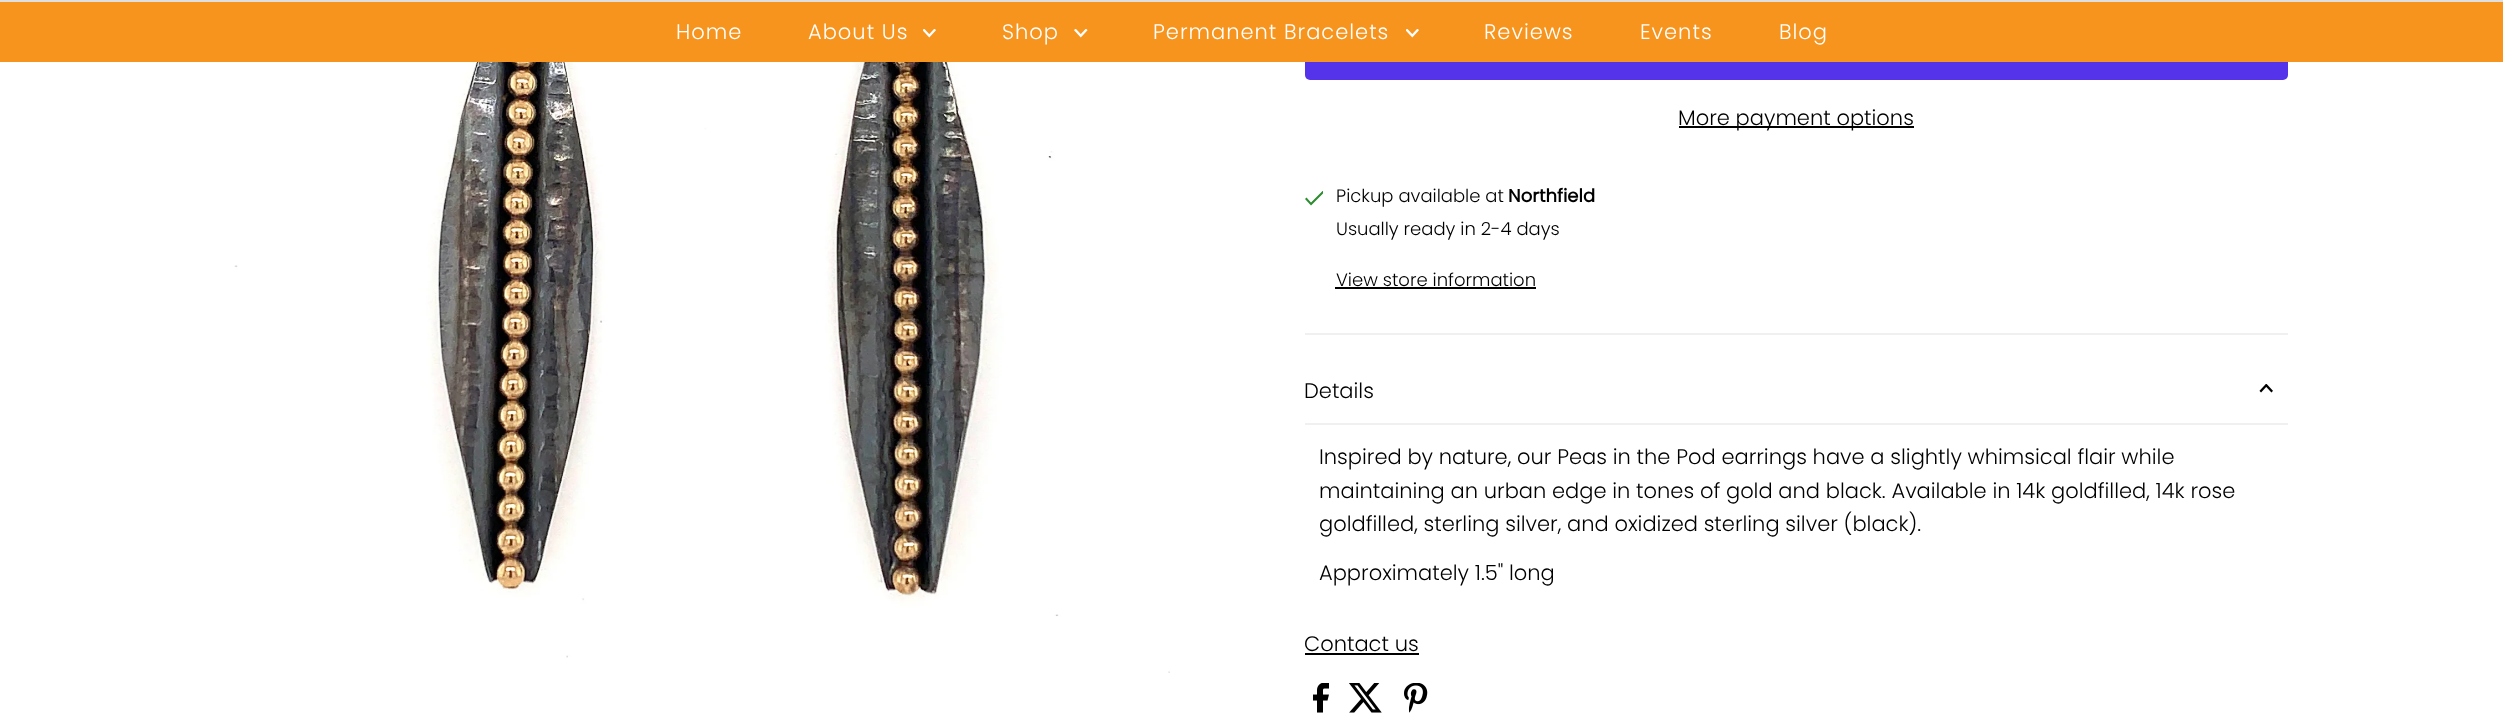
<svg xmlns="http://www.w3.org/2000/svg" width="2503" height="725">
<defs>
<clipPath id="clip1"><rect x="1305" y="191" width="18" height="15"/></clipPath>
</defs>
<rect width="100%" height="100%" fill="#fff"/>
<rect width="2503" height="2" fill="#dfdfdf"/>
<rect x="1305" y="5" width="983" height="75" rx="5" fill="#5433eb"/>
<rect y="2" width="2503" height="60" fill="#f7941e"/>
<text x="676" y="39" style="font-family:Poppins;font-size:21px;font-weight:300;letter-spacing:1px;fill:#fff">Home</text>
<text x="808" y="39" style="font-family:Poppins;font-size:21px;font-weight:300;letter-spacing:1px;fill:#fff">About Us</text>
<image x="923" y="29" width="13" height="9" href="media/1.png"/>
<text x="1002" y="39" style="font-family:Poppins;font-size:21px;font-weight:300;letter-spacing:1px;fill:#fff">Shop</text>
<image x="1074" y="29" width="14" height="9" href="media/2.png"/>
<text x="1153" y="39" style="font-family:Poppins;font-size:21px;font-weight:300;letter-spacing:1px;fill:#fff">Permanent Bracelets</text>
<image x="1406" y="29" width="13" height="9" href="media/1.png"/>
<text x="1484" y="39" style="font-family:Poppins;font-size:21px;font-weight:300;letter-spacing:1px;fill:#fff">Reviews</text>
<text x="1640" y="39" style="font-family:Poppins;font-size:21px;font-weight:300;letter-spacing:1px;fill:#fff">Events</text>
<text x="1779" y="39" style="font-family:Poppins;font-size:21px;font-weight:300;letter-spacing:1px;fill:#fff">Blog</text>
<image x="234" y="62" width="936" height="611" href="media/3.png"/>
<rect x="1679" y="126" width="235" height="2" fill="#000"/>
<text x="1678" y="125" style="font-family:Poppins;font-size:21px;font-weight:300;fill:#000">More payment options</text>
<rect x="1305" y="333" width="983" height="2" fill="#f0f0f0"/>
<g clip-path="url(#clip1)">
<path d="M1311 202.5l-4.5-5l-1.5 1.5l6 6.5l13.5-13.5l-1.5-1.5z" fill="#2e8d32"/>
</g>
<text x="1336" y="202" style="font-family:Poppins;font-size:18px;font-weight:300;fill:#000">Pickup available at</text>
<text x="1508" y="202" style="font-family:Poppins;font-size:18px;font-weight:bold;fill:#000">Northfield</text>
<text x="1336" y="235" style="font-family:Poppins;font-size:18px;font-weight:300;fill:#000">Usually ready in 2-4 days</text>
<text x="1336" y="286" style="font-family:Poppins;font-size:18px;font-weight:300;fill:#000">View store information</text>
<rect x="1335" y="287" width="201" height="2" fill="#000"/>
<rect x="1305" y="423" width="983" height="2" fill="#f0f0f0"/>
<text x="1304" y="398" style="font-family:Poppins;font-size:21px;font-weight:300;fill:#000">Details</text>
<image x="2259" y="384" width="14" height="9" href="media/4.png"/>
<text x="1319" y="464" style="font-family:Poppins;font-size:21px;font-weight:300;fill:#000">Inspired by nature, our Peas in the Pod earrings have a slightly whimsical flair while</text>
<text x="1319" y="498" style="font-family:Poppins;font-size:21px;font-weight:300;fill:#000">maintaining an urban edge in tones of gold and black. Available in 14k goldfilled, 14k rose</text>
<text x="1319" y="531" style="font-family:Poppins;font-size:21px;font-weight:300;fill:#000">goldfilled, sterling silver, and oxidized sterling silver (black).</text>
<text x="1319" y="580" style="font-family:Poppins;font-size:21px;font-weight:300;fill:#000">Approximately 1.5" long</text>
<text x="1304" y="651" style="font-family:Poppins;font-size:21px;font-weight:300;fill:#000">Contact us</text>
<rect x="1305" y="653" width="114" height="2" fill="#000"/>
<image x="1313" y="683" width="16" height="30" href="media/5.png"/>
<image x="1349" y="683" width="33" height="30" href="media/6.png"/>
<image x="1404" y="683" width="24" height="30" href="media/7.png"/>
</svg>
